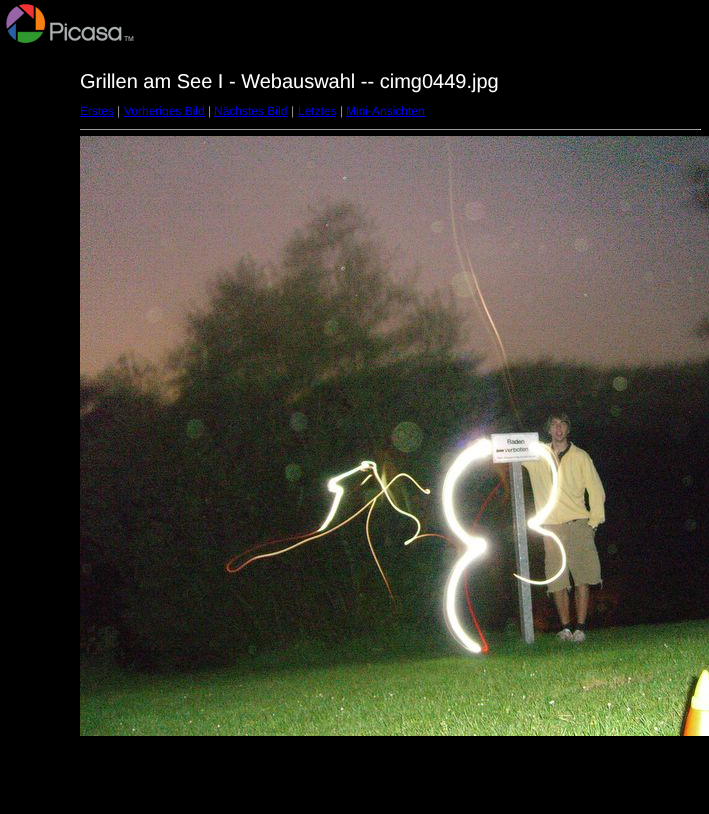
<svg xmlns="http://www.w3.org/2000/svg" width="709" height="814">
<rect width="100%" height="100%" fill="#000"/>
<image x="6" y="4" width="128" height="39" href="media/1.png"/>
<text x="80" y="88" style="font-family:Liberation Sans;font-size:20px;fill:#fff">Grillen am See I - Webauswahl -- cimg0449.jpg</text>
<text x="80" y="115" style="font-family:Liberation Sans;font-size:12px;fill:#00e">Erstes</text>
<rect x="80" y="116" width="34" height="1" fill="#00e"/>
<text x="117" y="115" style="font-family:Liberation Sans;font-size:12px;fill:#999">|</text>
<rect x="124" y="116" width="81" height="1" fill="#00e"/>
<text x="124" y="115" style="font-family:Liberation Sans;font-size:12px;fill:#00e">Vorheriges Bild</text>
<text x="208" y="115" style="font-family:Liberation Sans;font-size:12px;fill:#999">|</text>
<text x="214" y="115" style="font-family:Liberation Sans;font-size:12px;fill:#00e">Nächstes Bild</text>
<rect x="214" y="116" width="74" height="1" fill="#00e"/>
<text x="291" y="115" style="font-family:Liberation Sans;font-size:12px;fill:#999">|</text>
<text x="298" y="115" style="font-family:Liberation Sans;font-size:12px;fill:#00e">Letztes</text>
<rect x="298" y="116" width="38" height="1" fill="#00e"/>
<text x="340" y="115" style="font-family:Liberation Sans;font-size:12px;fill:#999">|</text>
<text x="346" y="115" style="font-family:Liberation Sans;font-size:12px;fill:#00e">Mini-Ansichten</text>
<rect x="346" y="116" width="79" height="1" fill="#00e"/>
<rect x="80" y="129" width="621" height="1" fill="#9f9f9f"/>
<rect x="700" y="129" width="1" height="1" fill="#eee"/>
<image x="80" y="136" width="629" height="600" href="media/2.png"/>
</svg>
